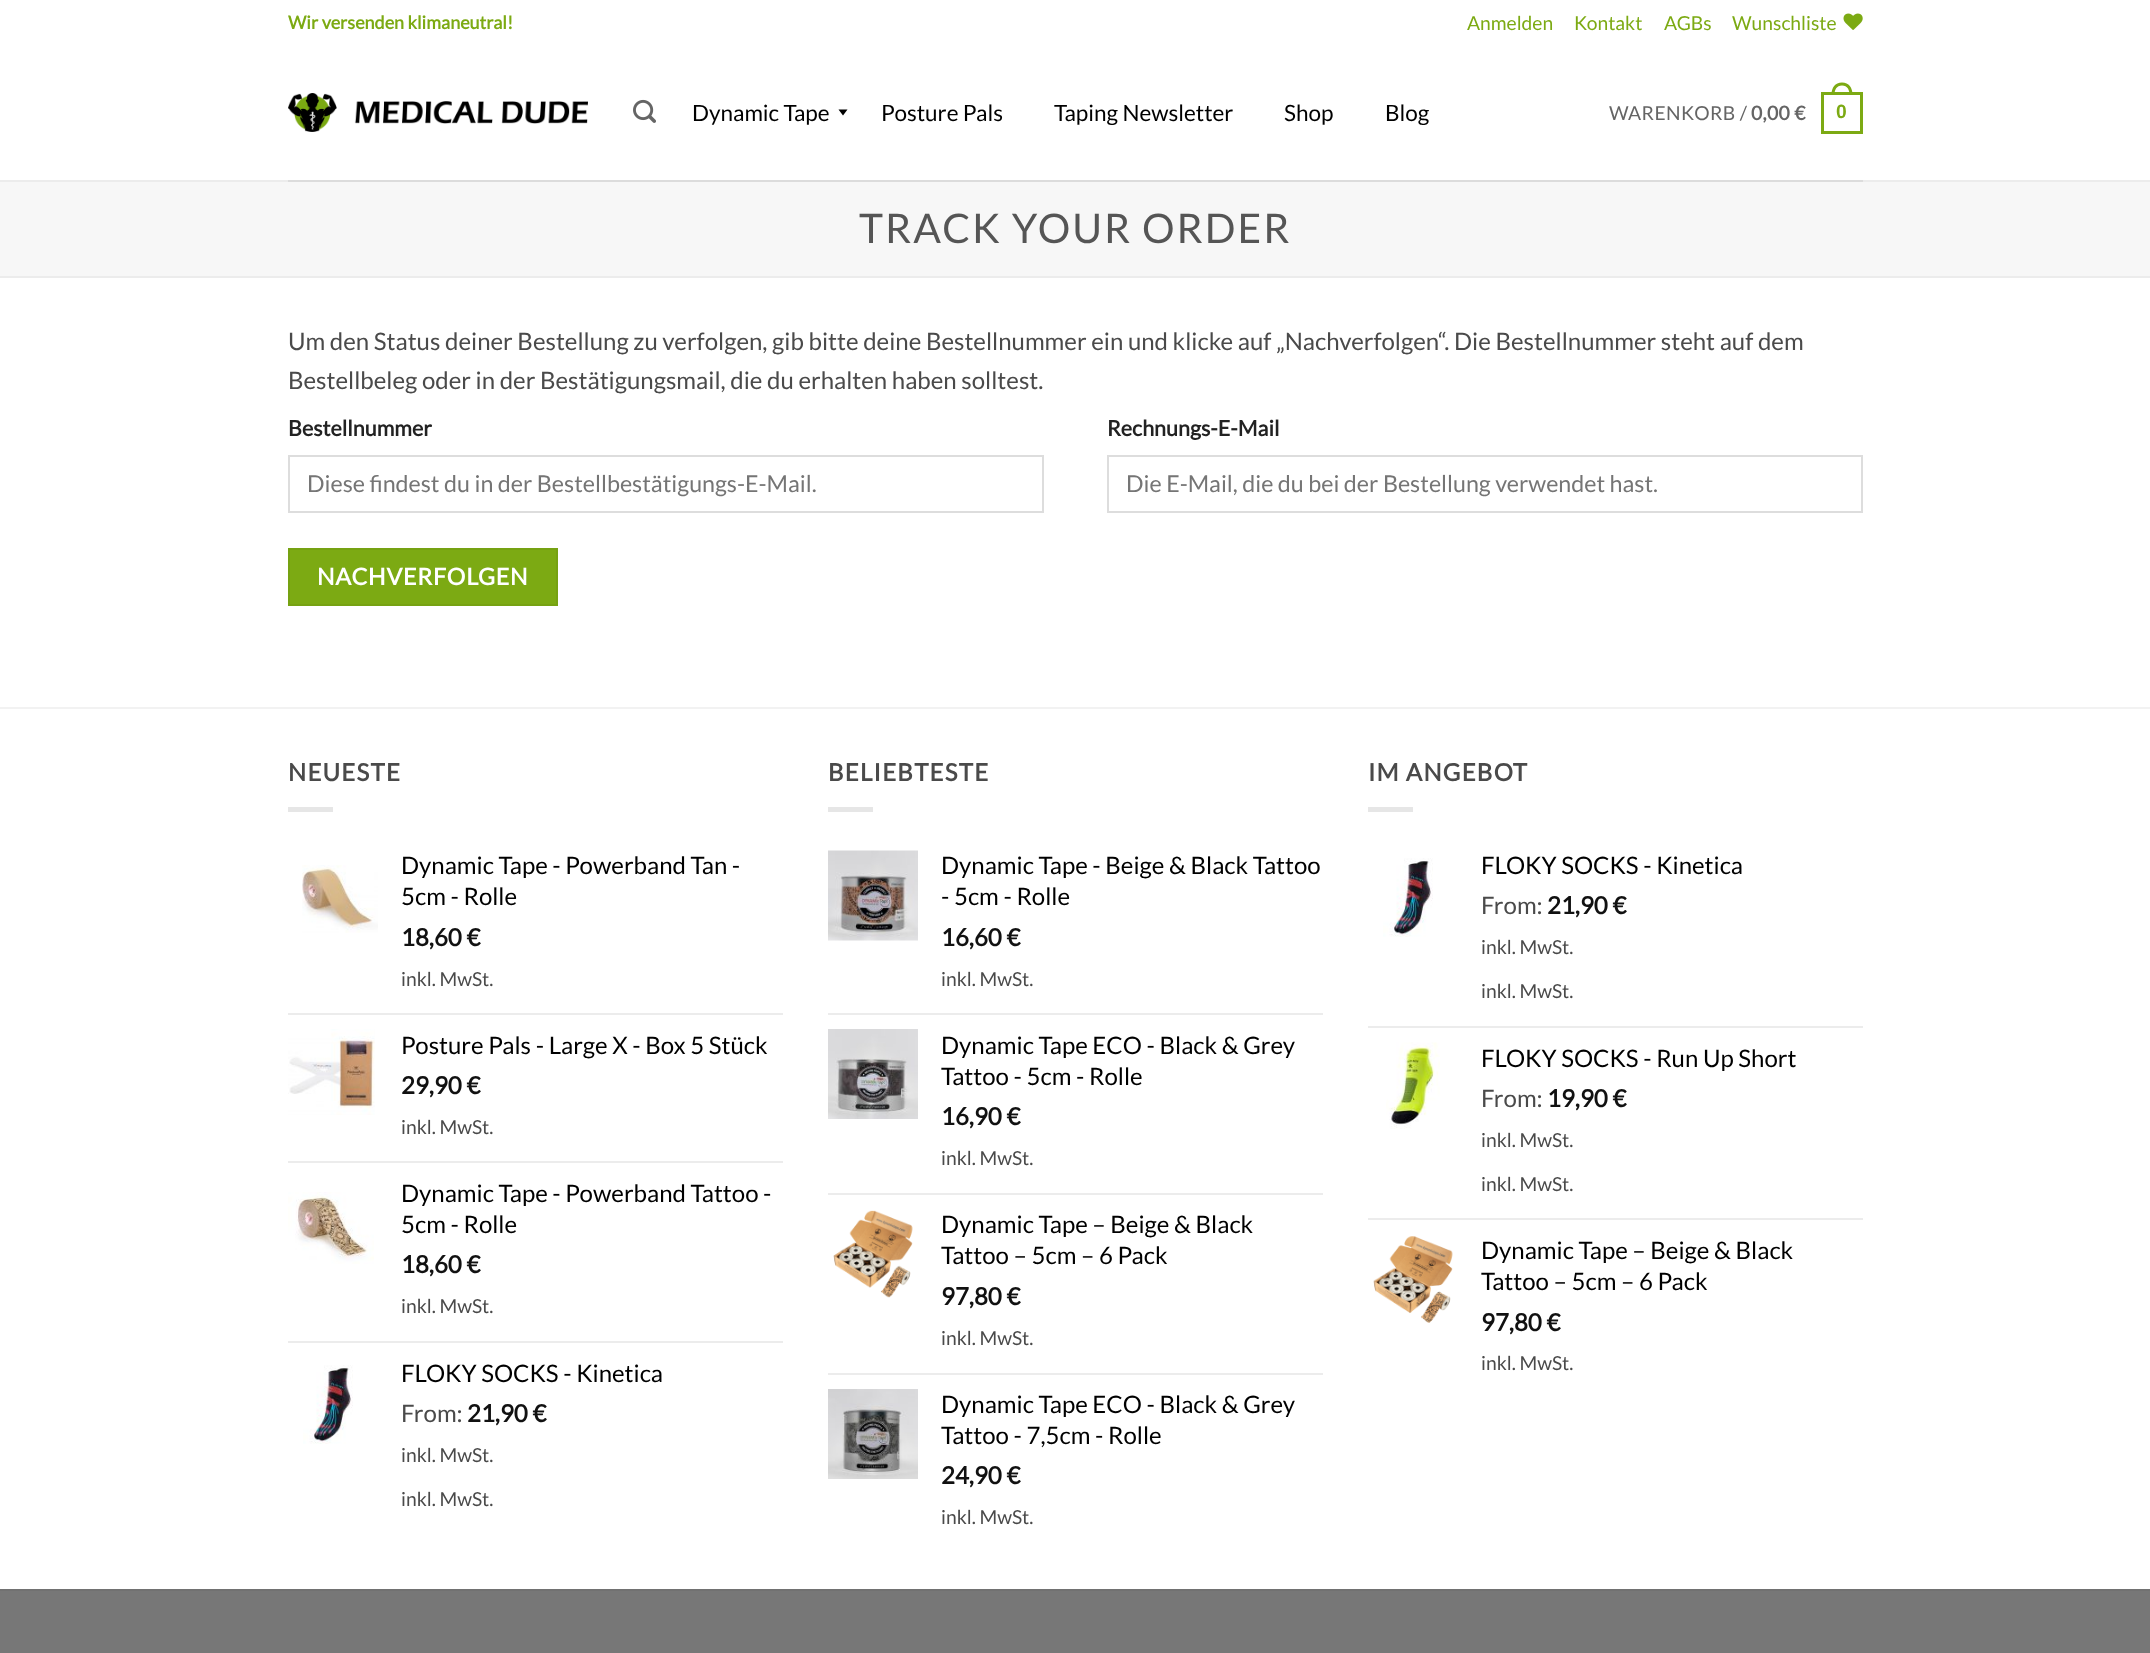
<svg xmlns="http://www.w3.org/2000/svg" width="2150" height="1653">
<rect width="100%" height="100%" fill="#fff"/>
<text x="288" y="29" style="font-family:Lato;font-size:18px;font-weight:bold;fill:#7caa13">Wir versenden klimaneutral!</text>
<text x="1467" y="30" style="font-family:Lato;font-size:19.25px;fill:#7caa13">Anmelden</text>
<text x="1574" y="30" style="font-family:Lato;font-size:19.25px;fill:#7caa13">Kontakt</text>
<text x="1664" y="30" style="font-family:Lato;font-size:19.25px;fill:#7caa13">AGBs</text>
<text x="1732" y="30" style="font-family:Lato;font-size:19.25px;fill:#7caa13">Wunschliste</text>
<image x="1843" y="13" width="20" height="17" href="media/1.png"/>
<image x="288" y="93" width="300" height="39" href="media/2.png"/>
<image x="633" y="99" width="23" height="24" href="media/3.png"/>
<text x="692" y="121" style="font-family:Lato;font-size:22.5px;fill:#000">Dynamic Tape</text>
<path d="M838.5 109.5h9l-4.5 6z" fill="#000"/>
<text x="881" y="121" style="font-family:Lato;font-size:22.5px;fill:#000">Posture Pals</text>
<text x="1054" y="121" style="font-family:Lato;font-size:22.5px;fill:#000">Taping Newsletter</text>
<text x="1284" y="121" style="font-family:Lato;font-size:22.5px;fill:#000">Shop</text>
<text x="1385" y="121" style="font-family:Lato;font-size:22.5px;fill:#000">Blog</text>
<text x="1609" y="120" style="font-family:Lato;font-size:19.25px;letter-spacing:0.4px;fill:#656565">WARENKORB /</text>
<text x="1751" y="120" style="font-family:Lato;font-size:19.25px;font-weight:bold;letter-spacing:0.4px;fill:#656565">0,00 €</text>
<rect x="1822.5" y="93.5" width="39" height="39" fill="none" stroke="#7caa13" stroke-width="3"/>
<path d="M1842 82.5c7 0 10.5 5.5 10.5 12h-21c0-6.5 3.5-12 10.5-12zm0 3c5.5 0 7.5 4.5 7.5 9h-15c0-4.5 2-9 7.5-9z" fill="#7caa13" fill-rule="evenodd"/>
<text x="1836" y="118" style="font-family:Liberation Sans;font-size:19.25px;font-weight:bold;letter-spacing:0.4px;fill:#7caa13">0</text>
<rect y="180" width="2150" height="2" fill="#ececec"/>
<rect x="288" y="180" width="1575" height="2" fill="#dcdcdc"/>
<rect y="182" width="2150" height="94" fill="#f7f7f7"/>
<rect y="276" width="2150" height="2" fill="#ececec"/>
<text x="859" y="243" style="font-family:Lato;font-size:40.75px;letter-spacing:2px;fill:#555">TRACK YOUR ORDER</text>
<text x="288" y="350" style="font-family:Lato;font-size:24px;fill:#4a4a4a">Um den Status deiner Bestellung zu verfolgen, gib bitte deine Bestellnummer ein und klicke auf „Nachverfolgen“. Die Bestellnummer steht auf dem</text>
<text x="288" y="389" style="font-family:Lato;font-size:24px;fill:#4a4a4a">Bestellbeleg oder in der Bestätigungsmail, die du erhalten haben solltest.</text>
<text x="288" y="436" style="font-family:Lato;font-size:21.5px;font-weight:bold;fill:#222">Bestellnummer</text>
<rect x="289" y="456" width="754" height="56" fill="none" stroke="#ddd" stroke-width="2"/>
<text x="307" y="492" style="font-family:Lato;font-size:23.25px;fill:#757575">Diese findest du in der Bestellbestätigungs-E-Mail.</text>
<text x="1107" y="436" style="font-family:Lato;font-size:21.5px;font-weight:bold;fill:#222">Rechnungs-E-Mail</text>
<rect x="1108" y="456" width="754" height="56" fill="none" stroke="#ddd" stroke-width="2"/>
<text x="1126" y="492" style="font-family:Lato;font-size:23.25px;fill:#757575">Die E-Mail, die du bei der Bestellung verwendet hast.</text>
<rect x="289" y="549" width="268" height="56" fill="#7caa13" stroke="#76a212" stroke-width="2"/>
<text x="317" y="585" style="font-family:Lato;font-size:23.25px;font-weight:bold;letter-spacing:0.75px;fill:#fff">NACHVERFOLGEN</text>
<rect y="707" width="2150" height="2" fill="#f2f2f2"/>
<text x="288" y="781" style="font-family:Lato;font-size:24px;font-weight:bold;letter-spacing:1.25px;fill:#4a4a4a">NEUESTE</text>
<rect x="288" y="807" width="45" height="5" fill="#e6e6e6"/>
<image x="302" y="865" width="76" height="68" href="media/4.png"/>
<text x="401" y="874" style="font-family:Lato;font-size:24px;fill:#000">Dynamic Tape - Powerband Tan -</text>
<text x="401" y="905" style="font-family:Lato;font-size:24px;fill:#000">5cm - Rolle</text>
<text x="401" y="946" style="font-family:Lato;font-size:24px;font-weight:bold;fill:#111">18,60 €</text>
<text x="401" y="986" style="font-family:Lato;font-size:19.25px;fill:#4a4a4a">inkl. MwSt.</text>
<rect x="288" y="1013" width="495" height="2" fill="#ececec"/>
<image x="288" y="1029" width="87" height="86" href="media/5.png"/>
<text x="401" y="1054" style="font-family:Lato;font-size:24px;fill:#000">Posture Pals - Large X - Box 5 Stück</text>
<text x="401" y="1094" style="font-family:Lato;font-size:24px;font-weight:bold;fill:#111">29,90 €</text>
<text x="401" y="1134" style="font-family:Lato;font-size:19.25px;fill:#4a4a4a">inkl. MwSt.</text>
<rect x="288" y="1161" width="495" height="2" fill="#ececec"/>
<image x="288" y="1192" width="86" height="72" href="media/6.png"/>
<text x="401" y="1202" style="font-family:Lato;font-size:24px;fill:#000">Dynamic Tape - Powerband Tattoo -</text>
<text x="401" y="1233" style="font-family:Lato;font-size:24px;fill:#000">5cm - Rolle</text>
<text x="401" y="1273" style="font-family:Lato;font-size:24px;font-weight:bold;fill:#111">18,60 €</text>
<text x="401" y="1313" style="font-family:Lato;font-size:19.25px;fill:#4a4a4a">inkl. MwSt.</text>
<rect x="288" y="1341" width="495" height="2" fill="#ececec"/>
<image x="303" y="1365" width="50" height="79" href="media/7.png"/>
<text x="401" y="1382" style="font-family:Lato;font-size:24px;fill:#000">FLOKY SOCKS - Kinetica</text>
<text x="401" y="1422" style="font-family:Lato;font-size:24px;fill:#4a4a4a">From:</text>
<text x="467" y="1422" style="font-family:Lato;font-size:24px;font-weight:bold;fill:#111">21,90 €</text>
<text x="401" y="1462" style="font-family:Lato;font-size:19.25px;fill:#4a4a4a">inkl. MwSt.</text>
<text x="401" y="1506" style="font-family:Lato;font-size:19.25px;fill:#4a4a4a">inkl. MwSt.</text>
<text x="828" y="781" style="font-family:Lato;font-size:24px;font-weight:bold;letter-spacing:1.25px;fill:#4a4a4a">BELIEBTESTE</text>
<rect x="828" y="807" width="45" height="5" fill="#e6e6e6"/>
<image x="828" y="850" width="90" height="91" href="media/8.png"/>
<text x="941" y="874" style="font-family:Lato;font-size:24px;fill:#000">Dynamic Tape - Beige &amp; Black Tattoo</text>
<text x="941" y="905" style="font-family:Lato;font-size:24px;fill:#000">- 5cm - Rolle</text>
<text x="941" y="946" style="font-family:Lato;font-size:24px;font-weight:bold;fill:#111">16,60 €</text>
<text x="941" y="986" style="font-family:Lato;font-size:19.25px;fill:#4a4a4a">inkl. MwSt.</text>
<rect x="828" y="1013" width="495" height="2" fill="#ececec"/>
<image x="828" y="1029" width="90" height="90" href="media/9.png"/>
<text x="941" y="1054" style="font-family:Lato;font-size:24px;fill:#000">Dynamic Tape ECO - Black &amp; Grey</text>
<text x="941" y="1085" style="font-family:Lato;font-size:24px;fill:#000">Tattoo - 5cm - Rolle</text>
<text x="941" y="1125" style="font-family:Lato;font-size:24px;font-weight:bold;fill:#111">16,90 €</text>
<text x="941" y="1165" style="font-family:Lato;font-size:19.25px;fill:#4a4a4a">inkl. MwSt.</text>
<rect x="828" y="1193" width="495" height="2" fill="#ececec"/>
<image x="833" y="1210" width="80" height="88" href="media/10.png"/>
<text x="941" y="1233" style="font-family:Lato;font-size:24px;fill:#000">Dynamic Tape – Beige &amp; Black</text>
<text x="941" y="1264" style="font-family:Lato;font-size:24px;fill:#000">Tattoo – 5cm – 6 Pack</text>
<text x="941" y="1305" style="font-family:Lato;font-size:24px;font-weight:bold;fill:#111">97,80 €</text>
<text x="941" y="1345" style="font-family:Lato;font-size:19.25px;fill:#4a4a4a">inkl. MwSt.</text>
<rect x="828" y="1373" width="495" height="2" fill="#ececec"/>
<image x="828" y="1389" width="90" height="90" href="media/11.png"/>
<text x="941" y="1413" style="font-family:Lato;font-size:24px;fill:#000">Dynamic Tape ECO - Black &amp; Grey</text>
<text x="941" y="1444" style="font-family:Lato;font-size:24px;fill:#000">Tattoo - 7,5cm - Rolle</text>
<text x="941" y="1484" style="font-family:Lato;font-size:24px;font-weight:bold;fill:#111">24,90 €</text>
<text x="941" y="1524" style="font-family:Lato;font-size:19.25px;fill:#4a4a4a">inkl. MwSt.</text>
<text x="1368" y="781" style="font-family:Lato;font-size:24px;font-weight:bold;letter-spacing:1.25px;fill:#4a4a4a">IM ANGEBOT</text>
<rect x="1368" y="807" width="45" height="5" fill="#e6e6e6"/>
<image x="1383" y="858" width="50" height="79" href="media/12.png"/>
<text x="1481" y="874" style="font-family:Lato;font-size:24px;fill:#000">FLOKY SOCKS - Kinetica</text>
<text x="1481" y="914" style="font-family:Lato;font-size:24px;fill:#4a4a4a">From:</text>
<text x="1547" y="914" style="font-family:Lato;font-size:24px;font-weight:bold;fill:#111">21,90 €</text>
<text x="1481" y="954" style="font-family:Lato;font-size:19.25px;fill:#4a4a4a">inkl. MwSt.</text>
<text x="1481" y="998" style="font-family:Lato;font-size:19.25px;fill:#4a4a4a">inkl. MwSt.</text>
<rect x="1368" y="1026" width="495" height="2" fill="#ececec"/>
<image x="1386" y="1042" width="54" height="87" href="media/13.png"/>
<text x="1481" y="1067" style="font-family:Lato;font-size:24px;fill:#000">FLOKY SOCKS - Run Up Short</text>
<text x="1481" y="1107" style="font-family:Lato;font-size:24px;fill:#4a4a4a">From:</text>
<text x="1547" y="1107" style="font-family:Lato;font-size:24px;font-weight:bold;fill:#111">19,90 €</text>
<text x="1481" y="1147" style="font-family:Lato;font-size:19.25px;fill:#4a4a4a">inkl. MwSt.</text>
<text x="1481" y="1191" style="font-family:Lato;font-size:19.25px;fill:#4a4a4a">inkl. MwSt.</text>
<rect x="1368" y="1218" width="495" height="2" fill="#ececec"/>
<image x="1373" y="1236" width="80" height="87" href="media/14.png"/>
<text x="1481" y="1259" style="font-family:Lato;font-size:24px;fill:#000">Dynamic Tape – Beige &amp; Black</text>
<text x="1481" y="1290" style="font-family:Lato;font-size:24px;fill:#000">Tattoo – 5cm – 6 Pack</text>
<text x="1481" y="1331" style="font-family:Lato;font-size:24px;font-weight:bold;fill:#111">97,80 €</text>
<text x="1481" y="1370" style="font-family:Lato;font-size:19.25px;fill:#4a4a4a">inkl. MwSt.</text>
<rect y="1591" width="2150" height="62" fill="#777"/>
<rect y="1589" width="2150" height="2" fill="#717171"/>
</svg>
